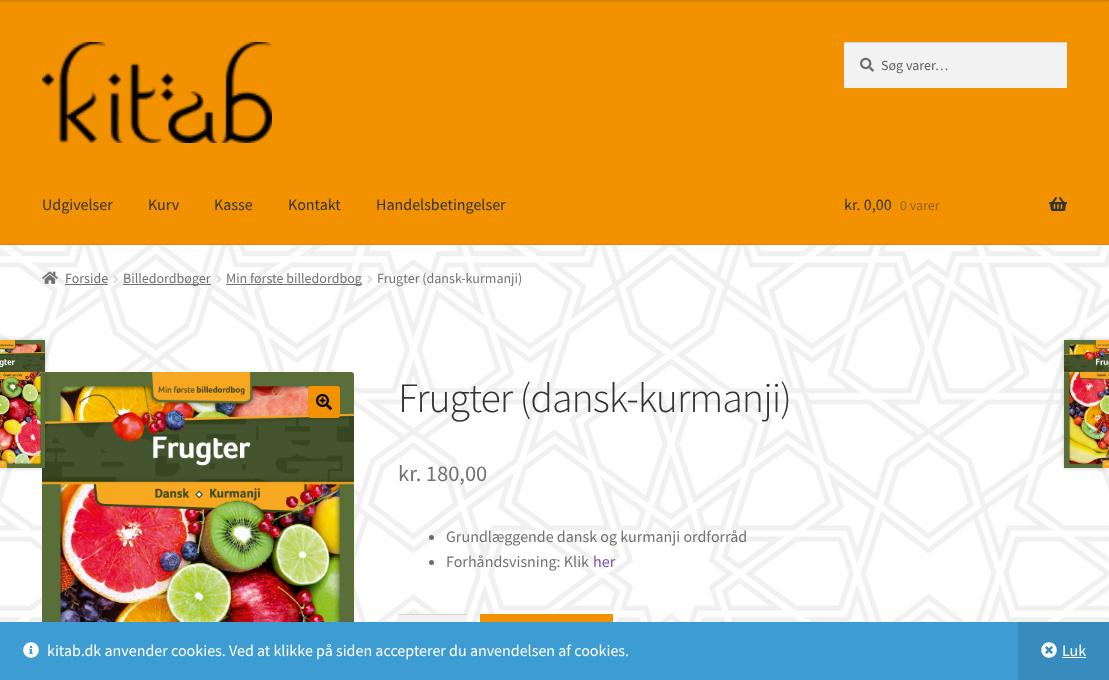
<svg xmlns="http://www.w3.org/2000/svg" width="1109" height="680">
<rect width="100%" height="100%" fill="#fff"/>
<image x="0" y="245" width="1109" height="377" href="media/1.png"/>
<rect width="1109" height="244" fill="#f39200"/>
<rect y="-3" width="1109" height="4" fill="#00000033" filter="blur(1px)"/>
<rect y="244" width="1109" height="1" fill="#e48300"/>
<image x="42" y="42" width="230" height="101" href="media/2.png"/>
<rect x="844" y="43" width="223" height="45" fill="#f2f2f2"/>
<image x="860" y="57" width="14" height="15" href="media/3.png"/>
<rect x="844" y="42" width="223" height="1" fill="#d4d4d4"/>
<text x="881" y="70" style="font-family:Source Sans Pro;font-size:14px;fill:#616161">Søg varer…</text>
<text x="42" y="210" style="font-family:Source Sans Pro;font-size:16px;fill:#333">Udgivelser</text>
<text x="148" y="210" style="font-family:Source Sans Pro;font-size:16px;fill:#333">Kurv</text>
<text x="214" y="210" style="font-family:Source Sans Pro;font-size:16px;fill:#333">Kasse</text>
<text x="288" y="210" style="font-family:Source Sans Pro;font-size:16px;fill:#333">Kontakt</text>
<text x="376" y="210" style="font-family:Source Sans Pro;font-size:16px;fill:#333">Handelsbetingelser</text>
<text x="844" y="210" style="font-family:Source Sans Pro;font-size:16px;fill:#333">kr. 0,00</text>
<text x="900" y="210" style="font-family:Source Sans Pro;font-size:14px;fill:#93631a">0 varer</text>
<image x="1049" y="197" width="18" height="14" href="media/4.png"/>
<image x="42" y="271" width="16" height="13" href="media/5.png"/>
<text x="65" y="283" style="font-family:Source Sans Pro;font-size:14px;fill:#727272">Forside</text>
<rect x="65" y="284" width="43" height="1" fill="#727272"/>
<image x="113" y="275" width="6" height="8" href="media/6.png"/>
<rect x="123" y="284" width="88" height="1" fill="#727272"/>
<text x="123" y="283" style="font-family:Source Sans Pro;font-size:14px;fill:#727272">Billedordbøger</text>
<image x="216" y="275" width="6" height="8" href="media/7.png"/>
<rect x="226" y="284" width="136" height="1" fill="#727272"/>
<text x="226" y="283" style="font-family:Source Sans Pro;font-size:14px;fill:#727272">Min første billedordbog</text>
<image x="367" y="275" width="6" height="8" href="media/8.png"/>
<text x="377" y="283" style="font-family:Source Sans Pro;font-size:14px;fill:#727272">Frugter (dansk-kurmanji)</text>
<image x="42" y="372" width="312" height="250" href="media/11.png"/>
<rect x="-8" y="340" width="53" height="128" fill="#00000033" filter="blur(2.5px)"/>
<image x="0" y="340" width="45" height="128" href="media/9.png"/>
<rect x="1064" y="340" width="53" height="128" fill="#00000033" filter="blur(2.5px)"/>
<image x="1064" y="340" width="45" height="128" href="media/10.png"/>
<rect x="308" y="386" width="32" height="32" rx="3" fill="#f39200"/>
<image x="316" y="394" width="16" height="16" href="media/12.png"/>
<text x="398" y="412" style="font-family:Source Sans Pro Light;font-size:41.9px;font-weight:300;letter-spacing:-1px;fill:#333">Frugter (dansk-kurmanji)</text>
<text x="398" y="481" style="font-family:Source Sans Pro;font-size:22.5px;fill:#727272">kr. 180,00</text>
<circle cx="431.5" cy="537.5" r="2.5" fill="#6d6d6d"/>
<text x="446" y="542" style="font-family:Source Sans Pro;font-size:16px;fill:#727272">Grundlæggende dansk og kurmanji ordforråd</text>
<circle cx="431.5" cy="562.5" r="2.5" fill="#6d6d6d"/>
<text x="446" y="567" style="font-family:Source Sans Pro;font-size:16px;fill:#727272">Forhåndsvisning: Klik</text>
<text x="593" y="567" style="font-family:Source Sans Pro;font-size:16px;fill:#7f54b3">her</text>
<rect x="398" y="615" width="68" height="7" fill="#f2f2f2"/>
<rect x="398" y="614" width="68" height="1" fill="#d4d4d4"/>
<rect x="480" y="614" width="133" height="8" fill="#f39200"/>
<rect y="622" width="1018" height="58" fill="#3d9cd2"/>
<image x="23" y="642" width="16" height="16" href="media/13.png"/>
<text x="47" y="656" style="font-family:Source Sans Pro;font-size:16px;fill:#fff">kitab.dk anvender cookies. Ved at klikke på siden accepterer du anvendelsen af cookies.</text>
<rect x="1018" y="622" width="91" height="58" fill="#378cbd"/>
<image x="1041" y="642" width="16" height="16" href="media/14.png"/>
<text x="1062" y="656" style="font-family:Source Sans Pro;font-size:16px;fill:#fff">Luk</text>
<rect x="1062" y="657" width="24" height="1" fill="#fff"/>
</svg>
